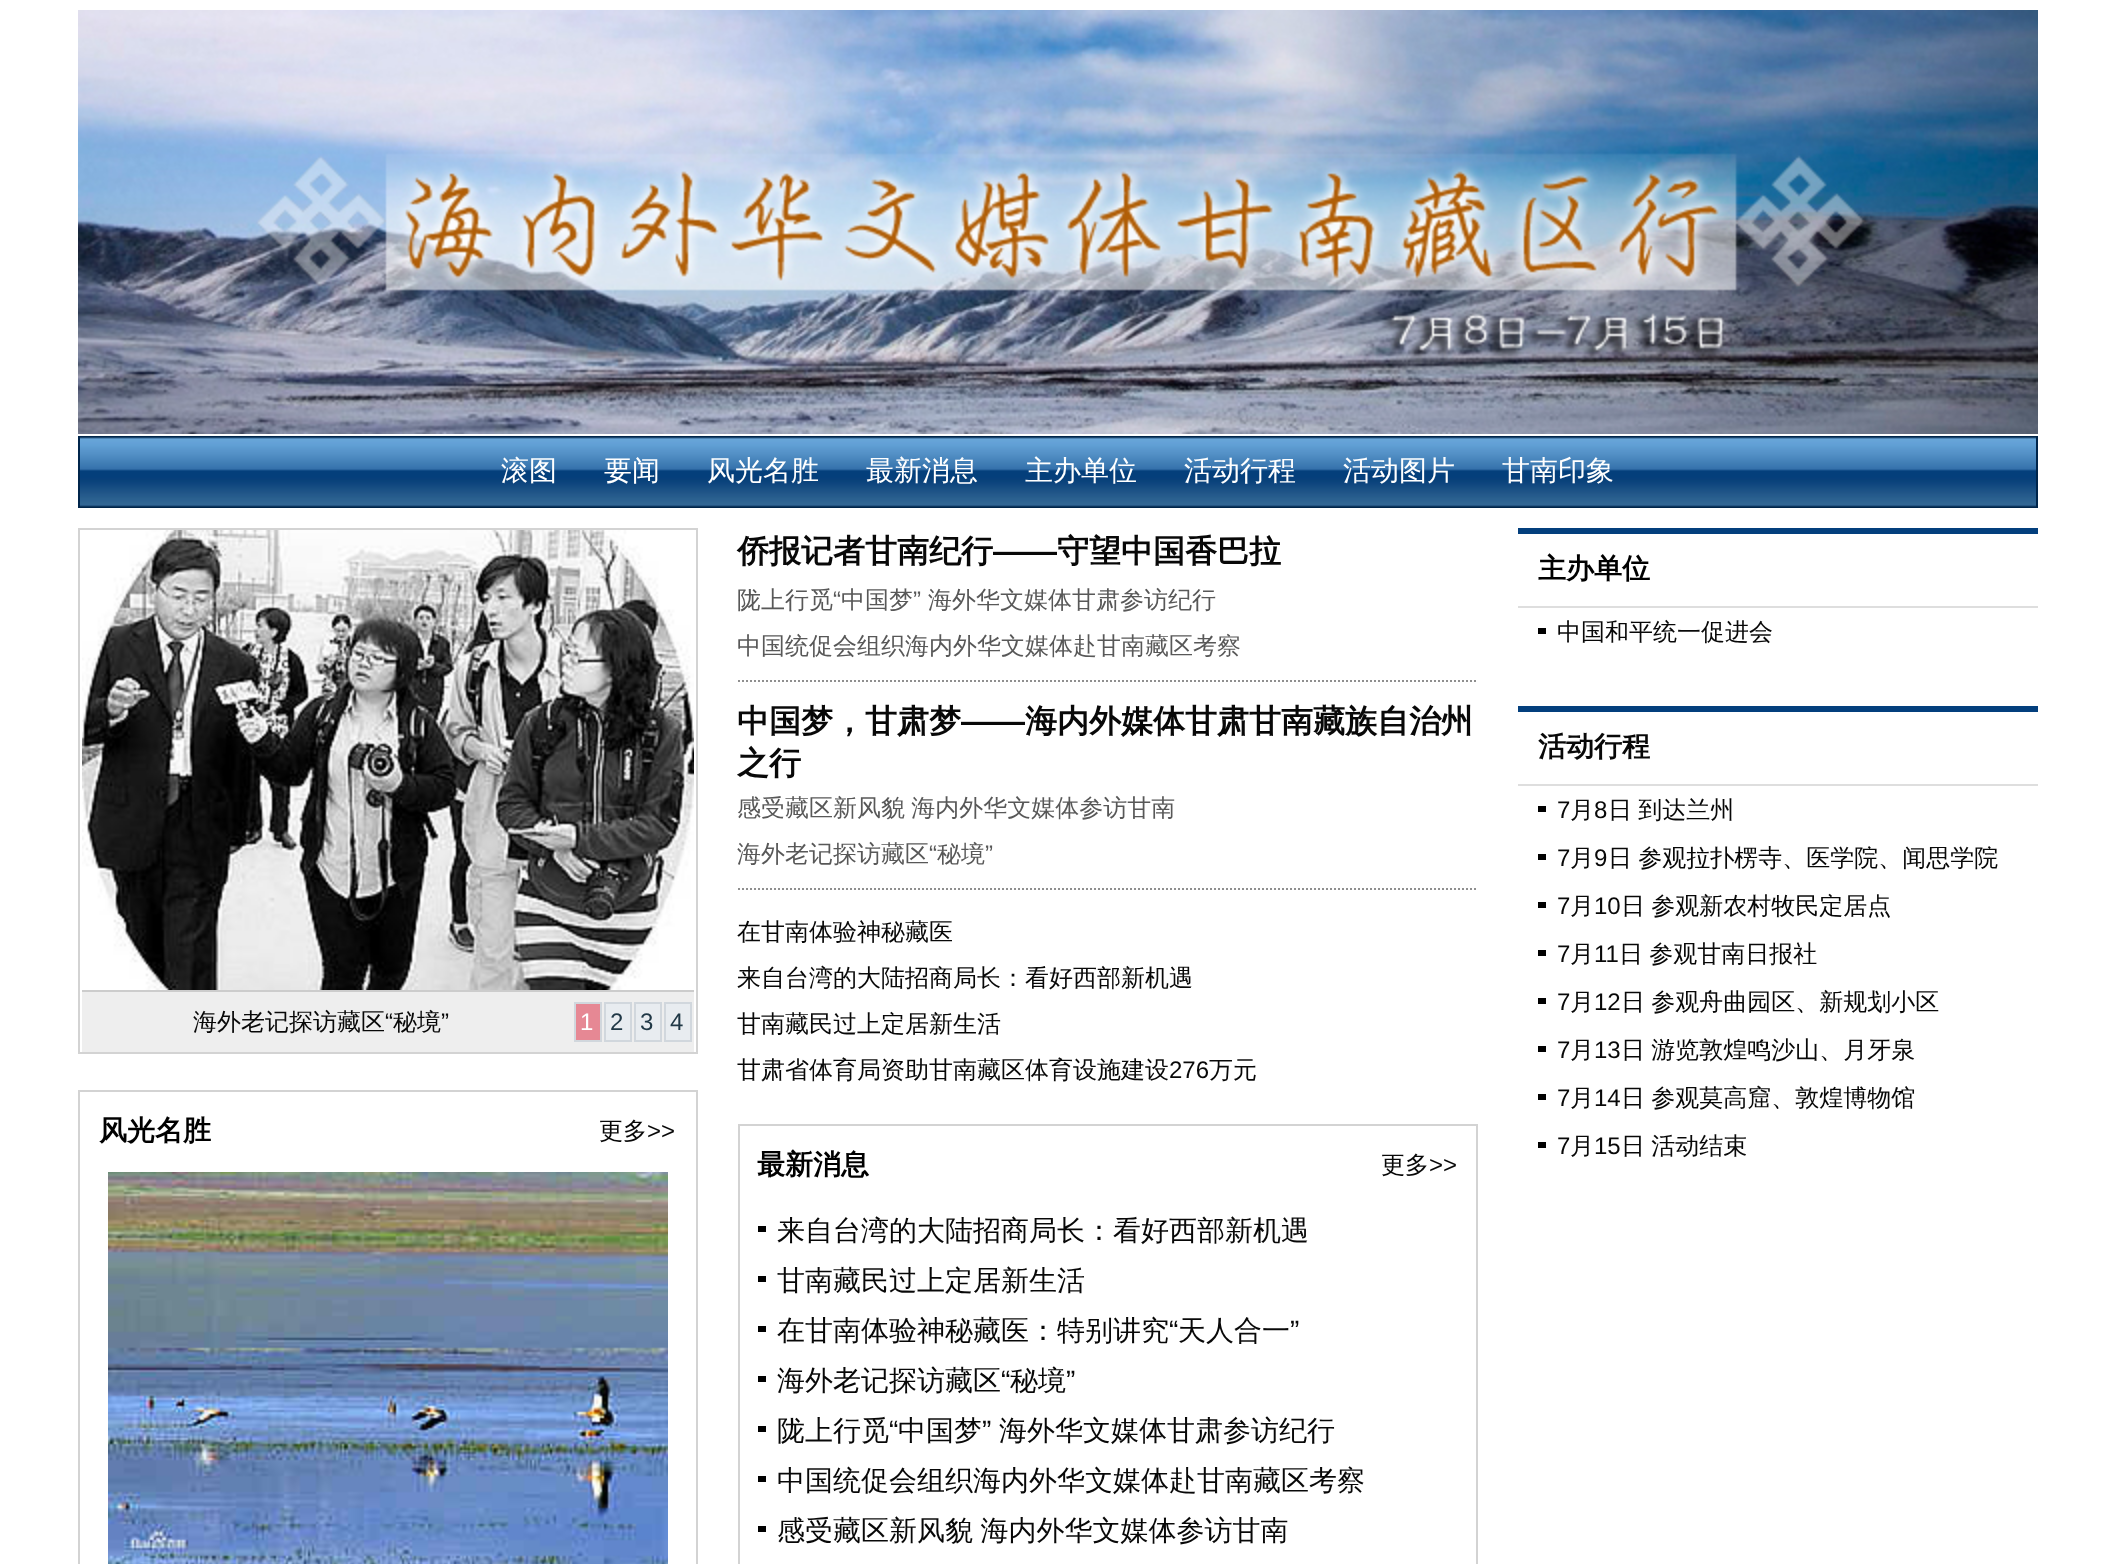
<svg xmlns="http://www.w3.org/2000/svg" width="2114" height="1564">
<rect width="100%" height="100%" fill="#fff"/>
<image x="78" y="10" width="1960" height="424" href="media/1.png"/>
<rect x="2036" y="436" width="2" height="72" fill="#00254b"/>
<rect x="78" y="436" width="2" height="72" fill="#00254b"/>
<image x="80" y="436" width="1956" height="72" href="media/2.png"/>
<text x="501" y="480" style="font-family:WenQuanYi Zen Hei;font-size:28px;font-weight:500;fill:#fff">滚图</text>
<text x="604" y="480" style="font-family:WenQuanYi Zen Hei;font-size:28px;font-weight:500;fill:#fff">要闻</text>
<text x="707" y="480" style="font-family:WenQuanYi Zen Hei;font-size:28px;font-weight:500;fill:#fff">风光名胜</text>
<text x="866" y="480" style="font-family:WenQuanYi Zen Hei;font-size:28px;font-weight:500;fill:#fff">最新消息</text>
<text x="1025" y="480" style="font-family:WenQuanYi Zen Hei;font-size:28px;font-weight:500;fill:#fff">主办单位</text>
<text x="1184" y="480" style="font-family:WenQuanYi Zen Hei;font-size:28px;font-weight:500;fill:#fff">活动行程</text>
<text x="1343" y="480" style="font-family:WenQuanYi Zen Hei;font-size:28px;font-weight:500;fill:#fff">活动图片</text>
<text x="1502" y="480" style="font-family:WenQuanYi Zen Hei;font-size:28px;font-weight:500;fill:#fff">甘南印象</text>
<rect x="79" y="529" width="618" height="524" fill="none" stroke="#d3d3d3" stroke-width="2"/>
<image x="82" y="530" width="612" height="460" href="media/3.png"/>
<rect x="82" y="992" width="612" height="60" fill="#eee"/>
<rect x="82" y="990" width="612" height="2" fill="#ccc"/>
<text x="193" y="1030" style="font-family:WenQuanYi Zen Hei;font-size:24px;font-weight:500;fill:#080808">海外老记探访藏区</text>
<text x="385" y="1030" style="font-family:Liberation Sans;font-size:24px;fill:#080808">“</text>
<text x="393" y="1030" style="font-family:WenQuanYi Zen Hei;font-size:24px;font-weight:500;fill:#080808">秘境</text>
<text x="441" y="1030" style="font-family:Liberation Sans;font-size:24px;fill:#080808">”</text>
<rect x="575" y="1003" width="26" height="38" fill="#e68894" stroke="#d1d7dd" stroke-width="2"/>
<text x="580" y="1030" style="font-family:Liberation Sans;font-size:24px;fill:#fff">1</text>
<rect x="605" y="1003" width="26" height="38" fill="#e8ecf0" stroke="#d1d7dd" stroke-width="2"/>
<text x="610" y="1030" style="font-family:Liberation Sans;font-size:24px;fill:#203846">2</text>
<rect x="635" y="1003" width="26" height="38" fill="#e8ecf0" stroke="#d1d7dd" stroke-width="2"/>
<text x="640" y="1030" style="font-family:Liberation Sans;font-size:24px;fill:#203846">3</text>
<rect x="665" y="1003" width="26" height="38" fill="#e8ecf0" stroke="#d1d7dd" stroke-width="2"/>
<text x="670" y="1030" style="font-family:Liberation Sans;font-size:24px;fill:#203846">4</text>
<rect x="79" y="1091" width="618" height="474" fill="none" stroke="#d3d3d3" stroke-width="2"/>
<text x="99" y="1140" style="font-family:WenQuanYi Zen Hei;font-size:28px;font-weight:bold;fill:#000">风光名胜</text>
<text x="599" y="1139" style="font-family:WenQuanYi Zen Hei;font-size:24px;font-weight:500;fill:#080808">更多</text>
<text x="647" y="1139" style="font-family:Liberation Sans;font-size:24px;fill:#080808">&gt;&gt;</text>
<image x="108" y="1172" width="560" height="392" href="media/4.png"/>
<text x="737" y="562" style="font-family:WenQuanYi Zen Hei;font-size:32px;font-weight:bold;fill:#080808">侨报记者甘南纪行</text>
<text x="993" y="562" style="font-family:Liberation Sans;font-size:32px;font-weight:bold;fill:#080808">——</text>
<text x="1057" y="562" style="font-family:WenQuanYi Zen Hei;font-size:32px;font-weight:bold;fill:#080808">守望中国香巴拉</text>
<path d="M738 681h740" fill="none" stroke="#8f8f8f" stroke-width="2" stroke-dasharray="2 2"/>
<text x="737" y="608" style="font-family:WenQuanYi Zen Hei;font-size:24px;font-weight:500;fill:#585858">陇上行觅</text>
<text x="833" y="608" style="font-family:Liberation Sans;font-size:24px;fill:#585858">“</text>
<text x="841" y="608" style="font-family:WenQuanYi Zen Hei;font-size:24px;font-weight:500;fill:#585858">中国梦</text>
<text x="913" y="608" style="font-family:Liberation Sans;font-size:24px;fill:#585858">”</text>
<text x="928" y="608" style="font-family:WenQuanYi Zen Hei;font-size:24px;font-weight:500;fill:#585858">海外华文媒体甘肃参访纪行</text>
<text x="737" y="654" style="font-family:WenQuanYi Zen Hei;font-size:24px;font-weight:500;fill:#585858">中国统促会组织海内外华文媒体赴甘南藏区考察</text>
<text x="737" y="732" style="font-family:WenQuanYi Zen Hei;font-size:32px;font-weight:bold;fill:#080808">中国梦，甘肃梦</text>
<text x="961" y="732" style="font-family:Liberation Sans;font-size:32px;font-weight:bold;fill:#080808">——</text>
<text x="1025" y="732" style="font-family:WenQuanYi Zen Hei;font-size:32px;font-weight:bold;fill:#080808">海内外媒体甘肃甘南藏族自治州</text>
<text x="737" y="774" style="font-family:WenQuanYi Zen Hei;font-size:32px;font-weight:bold;fill:#080808">之行</text>
<path d="M738 889h740" fill="none" stroke="#8f8f8f" stroke-width="2" stroke-dasharray="2 2"/>
<text x="737" y="816" word-spacing="-1" style="font-family:WenQuanYi Zen Hei;font-size:24px;font-weight:500;fill:#585858">感受藏区新风貌 海内外华文媒体参访甘南</text>
<text x="737" y="862" style="font-family:WenQuanYi Zen Hei;font-size:24px;font-weight:500;fill:#585858">海外老记探访藏区</text>
<text x="929" y="862" style="font-family:Liberation Sans;font-size:24px;fill:#585858">“</text>
<text x="937" y="862" style="font-family:WenQuanYi Zen Hei;font-size:24px;font-weight:500;fill:#585858">秘境</text>
<text x="985" y="862" style="font-family:Liberation Sans;font-size:24px;fill:#585858">”</text>
<text x="737" y="940" style="font-family:WenQuanYi Zen Hei;font-size:24px;font-weight:500;fill:#080808">在甘南体验神秘藏医</text>
<text x="737" y="986" style="font-family:WenQuanYi Zen Hei;font-size:24px;font-weight:500;fill:#080808">来自台湾的大陆招商局长：看好西部新机遇</text>
<text x="737" y="1032" style="font-family:WenQuanYi Zen Hei;font-size:24px;font-weight:500;fill:#080808">甘南藏民过上定居新生活</text>
<text x="737" y="1078" style="font-family:WenQuanYi Zen Hei;font-size:24px;font-weight:500;fill:#080808">甘肃省体育局资助甘南藏区体育设施建设</text>
<text x="1169" y="1078" style="font-family:Liberation Sans;font-size:24px;fill:#080808">276</text>
<text x="1209" y="1078" style="font-family:WenQuanYi Zen Hei;font-size:24px;font-weight:500;fill:#080808">万元</text>
<rect x="739" y="1125" width="738" height="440" fill="none" stroke="#d3d3d3" stroke-width="2"/>
<text x="757" y="1174" style="font-family:WenQuanYi Zen Hei;font-size:28px;font-weight:bold;fill:#000">最新消息</text>
<text x="1381" y="1173" style="font-family:WenQuanYi Zen Hei;font-size:24px;font-weight:500;fill:#080808">更多</text>
<text x="1429" y="1173" style="font-family:Liberation Sans;font-size:24px;fill:#080808">&gt;&gt;</text>
<rect x="758" y="1226" width="8" height="6" fill="#000"/>
<text x="777" y="1240" style="font-family:WenQuanYi Zen Hei;font-size:28px;font-weight:500;fill:#080808">来自台湾的大陆招商局长：看好西部新机遇</text>
<rect x="758" y="1276" width="8" height="6" fill="#000"/>
<text x="777" y="1290" style="font-family:WenQuanYi Zen Hei;font-size:28px;font-weight:500;fill:#080808">甘南藏民过上定居新生活</text>
<rect x="758" y="1326" width="8" height="6" fill="#000"/>
<text x="777" y="1340" style="font-family:WenQuanYi Zen Hei;font-size:28px;font-weight:500;fill:#080808">在甘南体验神秘藏医：特别讲究</text>
<text x="1169" y="1340" style="font-family:Liberation Sans;font-size:28px;fill:#080808">“</text>
<text x="1178" y="1340" style="font-family:WenQuanYi Zen Hei;font-size:28px;font-weight:500;fill:#080808">天人合一</text>
<text x="1290" y="1340" style="font-family:Liberation Sans;font-size:28px;fill:#080808">”</text>
<rect x="758" y="1376" width="8" height="6" fill="#000"/>
<text x="777" y="1390" style="font-family:WenQuanYi Zen Hei;font-size:28px;font-weight:500;fill:#080808">海外老记探访藏区</text>
<text x="1001" y="1390" style="font-family:Liberation Sans;font-size:28px;fill:#080808">“</text>
<text x="1010" y="1390" style="font-family:WenQuanYi Zen Hei;font-size:28px;font-weight:500;fill:#080808">秘境</text>
<text x="1066" y="1390" style="font-family:Liberation Sans;font-size:28px;fill:#080808">”</text>
<rect x="758" y="1426" width="8" height="6" fill="#000"/>
<text x="777" y="1440" style="font-family:WenQuanYi Zen Hei;font-size:28px;font-weight:500;fill:#080808">陇上行觅</text>
<text x="889" y="1440" style="font-family:Liberation Sans;font-size:28px;fill:#080808">“</text>
<text x="898" y="1440" style="font-family:WenQuanYi Zen Hei;font-size:28px;font-weight:500;fill:#080808">中国梦</text>
<text x="982" y="1440" style="font-family:Liberation Sans;font-size:28px;fill:#080808">”</text>
<text x="999" y="1440" style="font-family:WenQuanYi Zen Hei;font-size:28px;font-weight:500;fill:#080808">海外华文媒体甘肃参访纪行</text>
<rect x="758" y="1476" width="8" height="6" fill="#000"/>
<text x="777" y="1490" style="font-family:WenQuanYi Zen Hei;font-size:28px;font-weight:500;fill:#080808">中国统促会组织海内外华文媒体赴甘南藏区考察</text>
<rect x="758" y="1526" width="8" height="6" fill="#000"/>
<text x="777" y="1540" word-spacing="-1" style="font-family:WenQuanYi Zen Hei;font-size:28px;font-weight:500;fill:#080808">感受藏区新风貌 海内外华文媒体参访甘南</text>
<rect x="1518" y="528" width="520" height="6" fill="#033f7d"/>
<rect x="1518" y="606" width="520" height="2" fill="#dedede"/>
<text x="1538" y="578" style="font-family:WenQuanYi Zen Hei;font-size:28px;font-weight:bold;fill:#000">主办单位</text>
<rect x="1538" y="628" width="8" height="6" fill="#000"/>
<text x="1557" y="640" style="font-family:WenQuanYi Zen Hei;font-size:24px;font-weight:500;fill:#080808">中国和平统一促进会</text>
<rect x="1518" y="706" width="520" height="6" fill="#033f7d"/>
<rect x="1518" y="784" width="520" height="2" fill="#dedede"/>
<text x="1538" y="756" style="font-family:WenQuanYi Zen Hei;font-size:28px;font-weight:bold;fill:#080808">活动行程</text>
<rect x="1538" y="806" width="8" height="6" fill="#000"/>
<text x="1557" y="818" style="font-family:Liberation Sans;font-size:24px;fill:#080808">7</text>
<text x="1570" y="818" style="font-family:WenQuanYi Zen Hei;font-size:24px;font-weight:500;fill:#080808">月</text>
<text x="1594" y="818" style="font-family:Liberation Sans;font-size:24px;fill:#080808">8</text>
<text x="1608" y="818" word-spacing="-1" style="font-family:WenQuanYi Zen Hei;font-size:24px;font-weight:500;fill:#080808">日 到达兰州</text>
<rect x="1538" y="854" width="8" height="6" fill="#000"/>
<text x="1557" y="866" style="font-family:Liberation Sans;font-size:24px;fill:#080808">7</text>
<text x="1570" y="866" style="font-family:WenQuanYi Zen Hei;font-size:24px;font-weight:500;fill:#080808">月</text>
<text x="1594" y="866" style="font-family:Liberation Sans;font-size:24px;fill:#080808">9</text>
<text x="1608" y="866" word-spacing="-1" style="font-family:WenQuanYi Zen Hei;font-size:24px;font-weight:500;fill:#080808">日 参观拉扑楞寺、医学院、闻思学院</text>
<rect x="1538" y="902" width="8" height="6" fill="#000"/>
<text x="1557" y="914" style="font-family:Liberation Sans;font-size:24px;fill:#080808">7</text>
<text x="1570" y="914" style="font-family:WenQuanYi Zen Hei;font-size:24px;font-weight:500;fill:#080808">月</text>
<text x="1594" y="914" style="font-family:Liberation Sans;font-size:24px;fill:#080808">10</text>
<text x="1621" y="914" word-spacing="-1" style="font-family:WenQuanYi Zen Hei;font-size:24px;font-weight:500;fill:#080808">日 参观新农村牧民定居点</text>
<rect x="1538" y="950" width="8" height="6" fill="#000"/>
<text x="1557" y="962" style="font-family:Liberation Sans;font-size:24px;fill:#080808">7</text>
<text x="1570" y="962" style="font-family:WenQuanYi Zen Hei;font-size:24px;font-weight:500;fill:#080808">月</text>
<text x="1594" y="962" style="font-family:Liberation Sans;font-size:24px;fill:#080808">11</text>
<text x="1619" y="962" word-spacing="-1" style="font-family:WenQuanYi Zen Hei;font-size:24px;font-weight:500;fill:#080808">日 参观甘南日报社</text>
<rect x="1538" y="998" width="8" height="6" fill="#000"/>
<text x="1557" y="1010" style="font-family:Liberation Sans;font-size:24px;fill:#080808">7</text>
<text x="1570" y="1010" style="font-family:WenQuanYi Zen Hei;font-size:24px;font-weight:500;fill:#080808">月</text>
<text x="1594" y="1010" style="font-family:Liberation Sans;font-size:24px;fill:#080808">12</text>
<text x="1621" y="1010" word-spacing="-1" style="font-family:WenQuanYi Zen Hei;font-size:24px;font-weight:500;fill:#080808">日 参观舟曲园区、新规划小区</text>
<rect x="1538" y="1046" width="8" height="6" fill="#000"/>
<text x="1557" y="1058" style="font-family:Liberation Sans;font-size:24px;fill:#080808">7</text>
<text x="1570" y="1058" style="font-family:WenQuanYi Zen Hei;font-size:24px;font-weight:500;fill:#080808">月</text>
<text x="1594" y="1058" style="font-family:Liberation Sans;font-size:24px;fill:#080808">13</text>
<text x="1621" y="1058" word-spacing="-1" style="font-family:WenQuanYi Zen Hei;font-size:24px;font-weight:500;fill:#080808">日 游览敦煌鸣沙山、月牙泉</text>
<rect x="1538" y="1094" width="8" height="6" fill="#000"/>
<text x="1557" y="1106" style="font-family:Liberation Sans;font-size:24px;fill:#080808">7</text>
<text x="1570" y="1106" style="font-family:WenQuanYi Zen Hei;font-size:24px;font-weight:500;fill:#080808">月</text>
<text x="1594" y="1106" style="font-family:Liberation Sans;font-size:24px;fill:#080808">14</text>
<text x="1621" y="1106" word-spacing="-1" style="font-family:WenQuanYi Zen Hei;font-size:24px;font-weight:500;fill:#080808">日 参观莫高窟、敦煌博物馆</text>
<rect x="1538" y="1142" width="8" height="6" fill="#000"/>
<text x="1557" y="1154" style="font-family:Liberation Sans;font-size:24px;fill:#080808">7</text>
<text x="1570" y="1154" style="font-family:WenQuanYi Zen Hei;font-size:24px;font-weight:500;fill:#080808">月</text>
<text x="1594" y="1154" style="font-family:Liberation Sans;font-size:24px;fill:#080808">15</text>
<text x="1621" y="1154" word-spacing="-1" style="font-family:WenQuanYi Zen Hei;font-size:24px;font-weight:500;fill:#080808">日 活动结束</text>
</svg>
